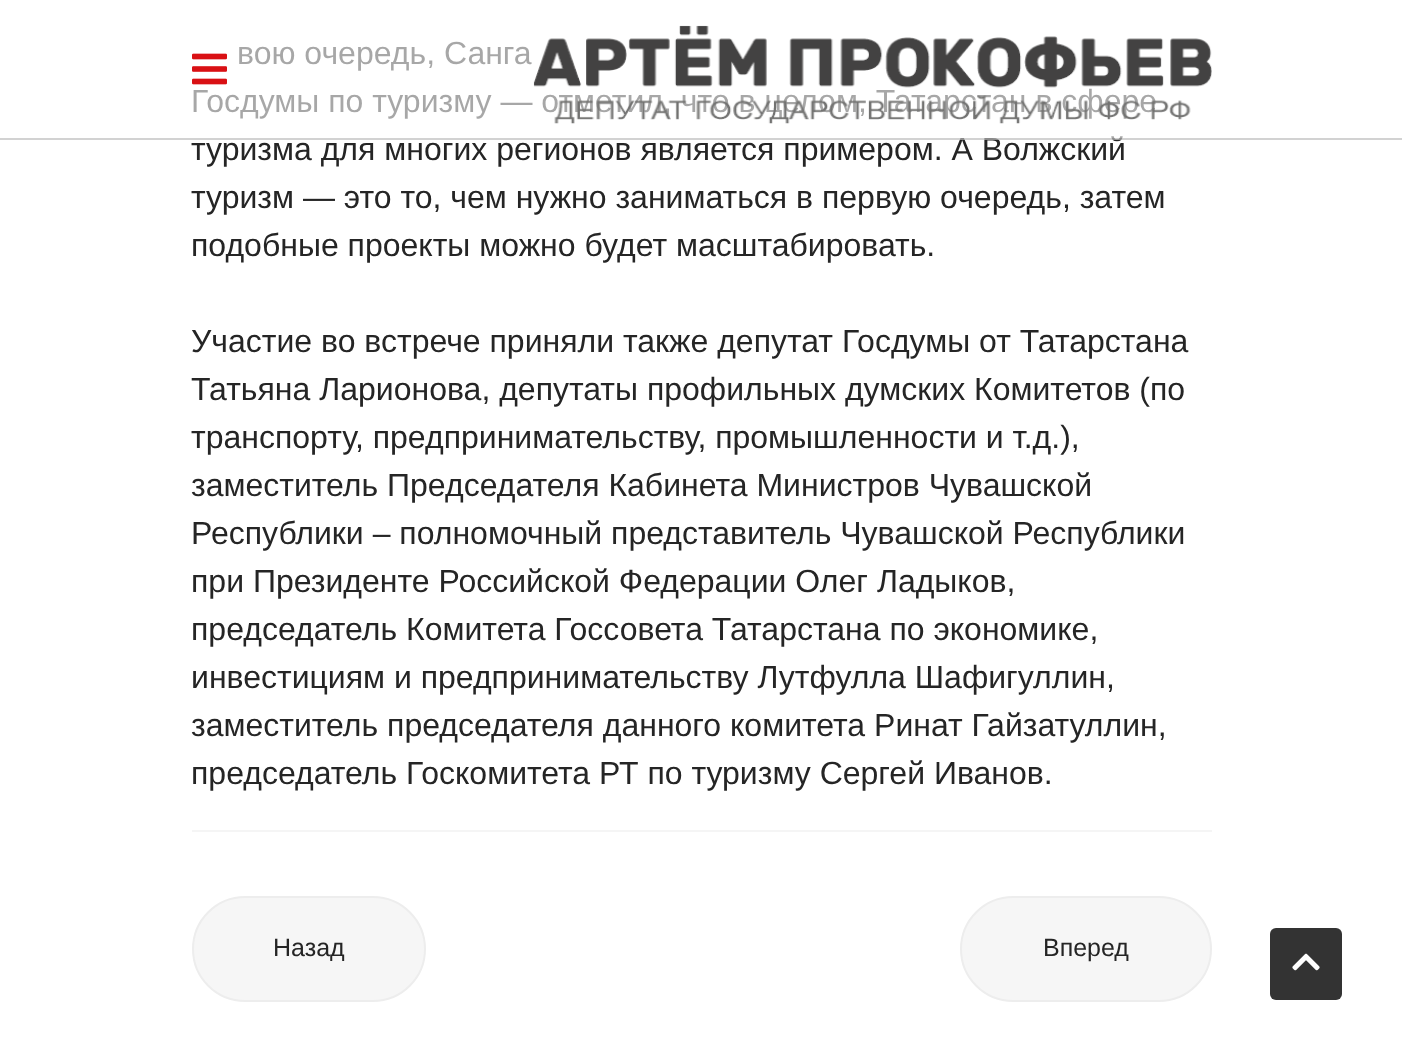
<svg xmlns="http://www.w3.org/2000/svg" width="1402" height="1059">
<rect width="100%" height="100%" fill="#fff"/>
<text x="237" y="64" style="font-family:Liberation Sans;font-size:32px;fill:#252525">вою очередь, Санга</text>
<text x="191" y="112" style="font-family:Liberation Sans;font-size:32px;fill:#252525">Госдумы по туризму — отметил, что в целом, Татарстан в сфере</text>
<text x="191" y="160" style="font-family:Liberation Sans;font-size:32px;fill:#252525">туризма для многих регионов является примером. А Волжский</text>
<rect x="193" y="41" width="963" height="99" fill="#ffffff99"/>
<rect y="138" width="1402" height="2" fill="#1d1d1d33"/>
<image x="192" y="53" width="35" height="32" href="media/1.png"/>
<image x="533" y="25" width="679" height="99" href="media/2.png"/>
<text x="191" y="208" style="font-family:Liberation Sans;font-size:32px;fill:#252525">туризм — это то, чем нужно заниматься в первую очередь, затем</text>
<text x="191" y="256" style="font-family:Liberation Sans;font-size:32px;fill:#252525">подобные проекты можно будет масштабировать.</text>
<text x="191" y="352" style="font-family:Liberation Sans;font-size:32px;fill:#252525">Участие во встрече приняли также депутат Госдумы от Татарстана</text>
<text x="191" y="400" style="font-family:Liberation Sans;font-size:32px;fill:#252525">Татьяна Ларионова, депутаты профильных думских Комитетов (по</text>
<text x="191" y="448" style="font-family:Liberation Sans;font-size:32px;fill:#252525">транспорту, предпринимательству, промышленности и т.д.),</text>
<text x="191" y="496" style="font-family:Liberation Sans;font-size:32px;fill:#252525">заместитель Председателя Кабинета Министров Чувашской</text>
<text x="191" y="544" style="font-family:Liberation Sans;font-size:32px;fill:#252525">Республики – полномочный представитель Чувашской Республики</text>
<text x="191" y="592" style="font-family:Liberation Sans;font-size:32px;fill:#252525">при Президенте Российской Федерации Олег Ладыков,</text>
<text x="191" y="640" style="font-family:Liberation Sans;font-size:32px;fill:#252525">председатель Комитета Госсовета Татарстана по экономике,</text>
<text x="191" y="688" style="font-family:Liberation Sans;font-size:32px;fill:#252525">инвестициям и предпринимательству Лутфулла Шафигуллин,</text>
<text x="191" y="736" style="font-family:Liberation Sans;font-size:32px;fill:#252525">заместитель председателя данного комитета Ринат Гайзатуллин,</text>
<text x="191" y="784" style="font-family:Liberation Sans;font-size:32px;fill:#252525">председатель Госкомитета РТ по туризму Сергей Иванов.</text>
<rect x="192" y="830" width="1020" height="2" fill="#f5f5f5"/>
<rect x="193" y="897" width="232" height="104" rx="52" fill="#f6f6f6" stroke="#ededed" stroke-width="2"/>
<text x="273" y="956" style="font-family:Liberation Sans;font-size:25px;fill:#252525">Назад</text>
<rect x="961" y="897" width="250" height="104" rx="52" fill="#f6f6f6" stroke="#ededed" stroke-width="2"/>
<text x="1043" y="956" style="font-family:Liberation Sans;font-size:25px;fill:#252525">Вперед</text>
<rect x="1270" y="928" width="72" height="72" rx="6" fill="#333"/>
<image x="1292" y="953" width="28" height="18" href="media/3.png"/>
</svg>
